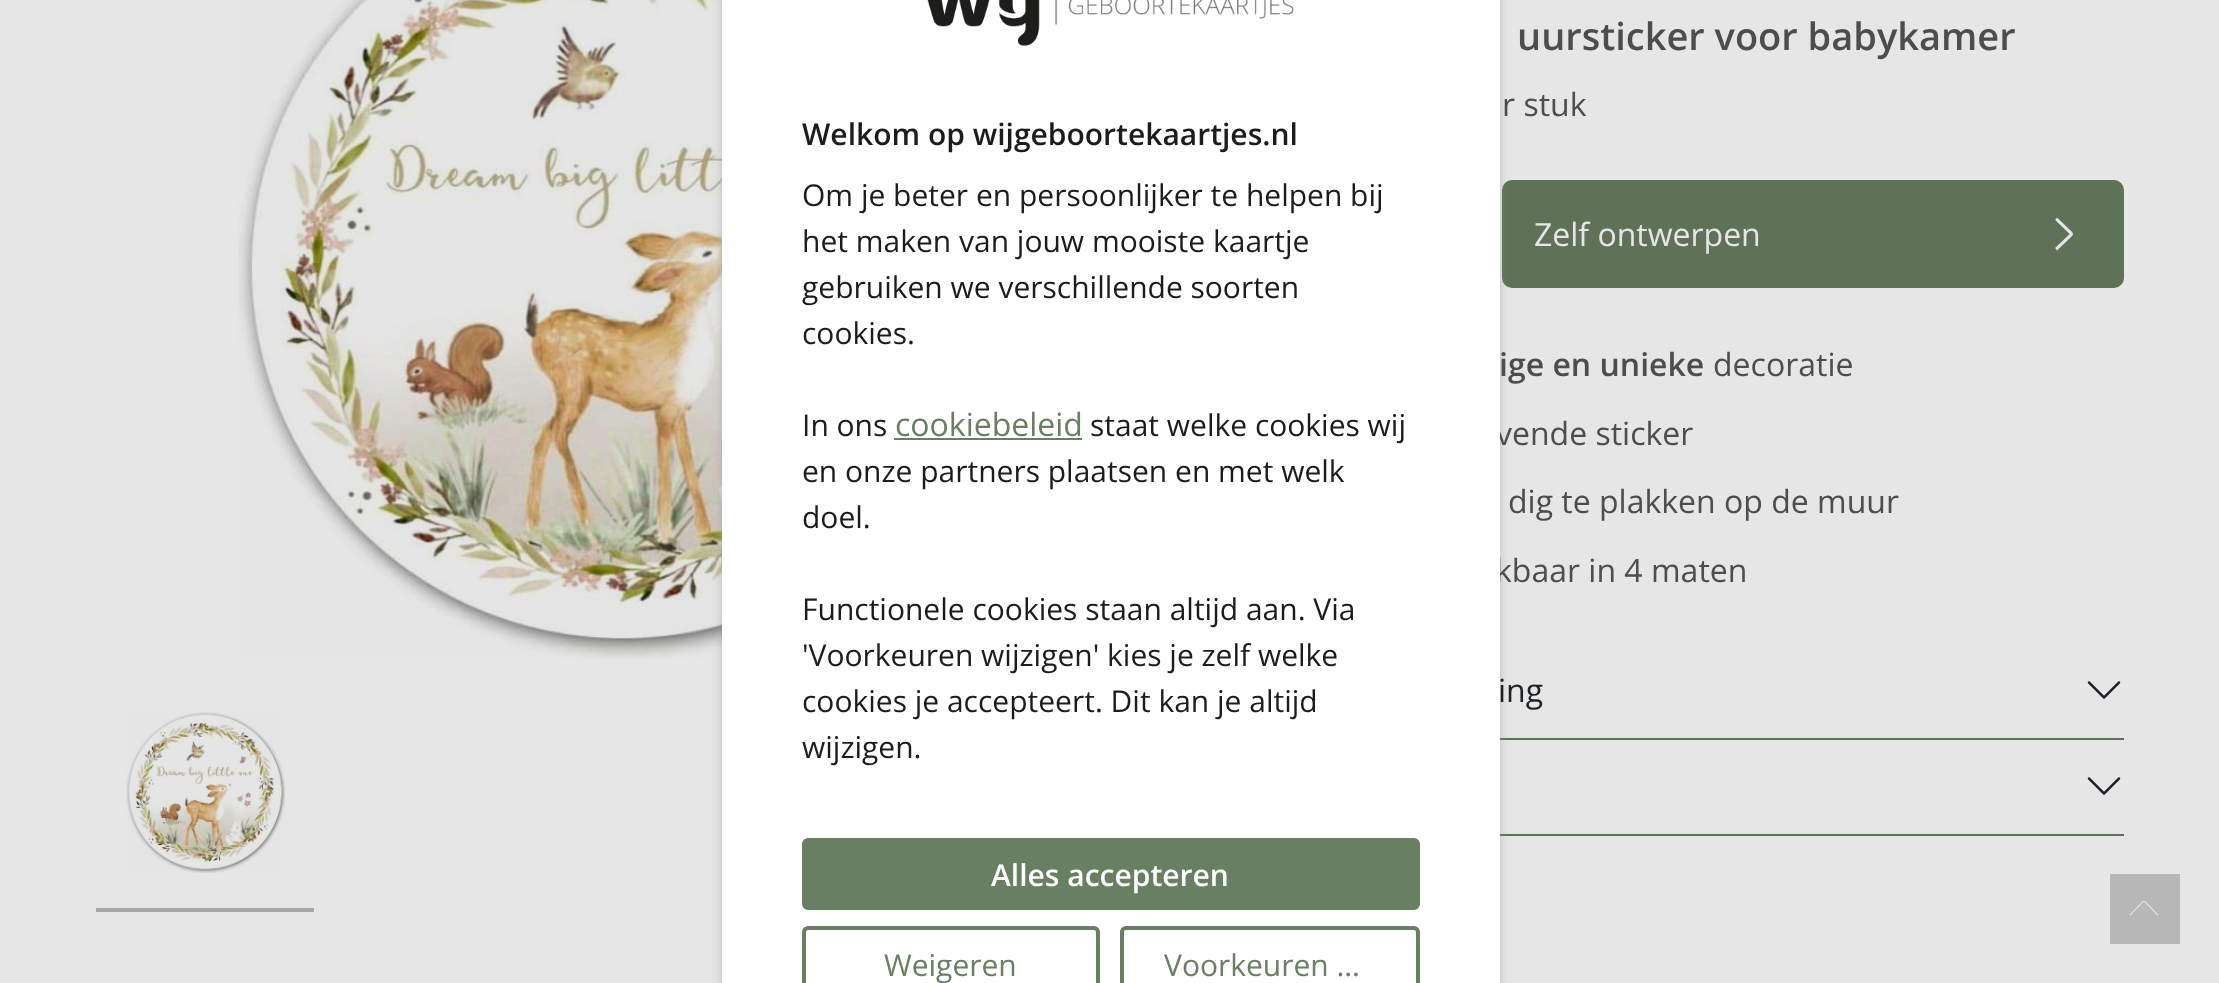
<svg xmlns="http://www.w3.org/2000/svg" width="2219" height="983">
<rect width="100%" height="100%" fill="#e6e6e6"/>
<image x="238" y="0" width="484" height="659" href="media/2.png"/>
<rect x="1502" y="180" width="622" height="108" rx="10" fill="#5f7258"/>
<rect x="1500" y="738" width="624" height="2" fill="#5f7258"/>
<rect x="1500" y="834" width="624" height="2" fill="#5f7258"/>
<rect x="722" y="-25" width="778" height="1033" rx="10" fill="#94939180" filter="blur(5px)"/>
<text x="1496" y="445" style="font-family:Open Sans;font-size:32px;fill:#4d4d4d">vende sticker</text>
<text x="1495" y="582" style="font-family:Open Sans;font-size:32px;fill:#4d4d4d">kbaar in 4 maten</text>
<rect x="722" width="778" height="983" fill="#fff"/>
<image x="927" y="0" width="367" height="46" href="media/1.png"/>
<text x="802" y="145" style="font-family:Open Sans;font-size:30px;font-weight:600;fill:#1c1c1b">Welkom op wijgeboortekaartjes.nl</text>
<text x="802" y="206" style="font-family:Open Sans;font-size:30px;fill:#1c1c1b">Om je beter en persoonlijker te helpen bij</text>
<text x="802" y="252" style="font-family:Open Sans;font-size:30px;fill:#1c1c1b">het maken van jouw mooiste kaartje</text>
<text x="802" y="298" style="font-family:Open Sans;font-size:30px;fill:#1c1c1b">gebruiken we verschillende soorten</text>
<text x="802" y="344" style="font-family:Open Sans;font-size:30px;fill:#1c1c1b">cookies.</text>
<text x="802" y="436" style="font-family:Open Sans;font-size:30px;fill:#1c1c1b">In ons</text>
<text x="895" y="436" style="font-family:Open Sans;font-size:32px;fill:#697f62">cookiebeleid</text>
<rect x="894" y="438" width="188" height="2" fill="#697f62"/>
<text x="1090" y="436" style="font-family:Open Sans;font-size:30px;fill:#1c1c1b">staat welke cookies wij</text>
<text x="802" y="482" style="font-family:Open Sans;font-size:30px;fill:#1c1c1b">en onze partners plaatsen en met welk</text>
<text x="802" y="528" style="font-family:Open Sans;font-size:30px;fill:#1c1c1b">doel.</text>
<text x="802" y="620" style="font-family:Open Sans;font-size:30px;fill:#1c1c1b">Functionele cookies staan altijd aan. Via</text>
<text x="802" y="666" style="font-family:Open Sans;font-size:30px;fill:#1c1c1b">'Voorkeuren wijzigen' kies je zelf welke</text>
<text x="802" y="712" style="font-family:Open Sans;font-size:30px;fill:#1c1c1b">cookies je accepteert. Dit kan je altijd</text>
<text x="802" y="758" style="font-family:Open Sans;font-size:30px;fill:#1c1c1b">wijzigen.</text>
<rect x="803" y="839" width="616" height="70" rx="5" fill="#697f62" stroke="#697f62" stroke-width="2"/>
<text x="991" y="886" style="font-family:Open Sans;font-size:30px;font-weight:600;fill:#fff">Alles accepteren</text>
<rect x="804" y="928" width="294" height="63" rx="4" fill="none" stroke="#697f62" stroke-width="4"/>
<text x="884" y="976" style="font-family:Open Sans;font-size:30px;fill:#697f62">Weigeren</text>
<rect x="1122" y="928" width="296" height="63" rx="4" fill="none" stroke="#697f62" stroke-width="4"/>
<text x="1164" y="976" style="font-family:Open Sans;font-size:30px;fill:#697f62">Voorkeuren …</text>
<rect x="96" y="908" width="218" height="4" fill="#a3aba0"/>
<image x="126" y="712" width="160" height="161" href="media/3.png"/>
<text x="1517" y="50" style="font-family:Open Sans;font-size:38px;font-weight:600;fill:#4d4d4d">uursticker voor babykamer</text>
<text x="1502" y="116" style="font-family:Open Sans;font-size:32px;fill:#4d4d4d">r stuk</text>
<text x="1534" y="246" style="font-family:Open Sans;font-size:32px;fill:#e6e6e6">Zelf ontwerpen</text>
<image x="2055" y="218" width="18" height="33" href="media/4.png"/>
<text x="1499" y="376" style="font-family:Open Sans;font-size:32px;font-weight:600;fill:#4d4d4d">ige en unieke</text>
<text x="1713" y="376" style="font-family:Open Sans;font-size:32px;fill:#4d4d4d">decoratie</text>
<text x="1508" y="513" style="font-family:Open Sans;font-size:32px;fill:#4d4d4d">dig te plakken op de muur</text>
<text x="1498" y="702" style="font-family:Open Sans;font-size:32px;fill:#1e2125">ing</text>
<image x="2087" y="681" width="34" height="18" href="media/5.png"/>
<image x="2087" y="777" width="34" height="18" href="media/5.png"/>
<rect x="2110" y="874" width="70" height="70" fill="#b8b8b8"/>
<image x="2129" y="900" width="30" height="16" href="media/6.png"/>
</svg>
